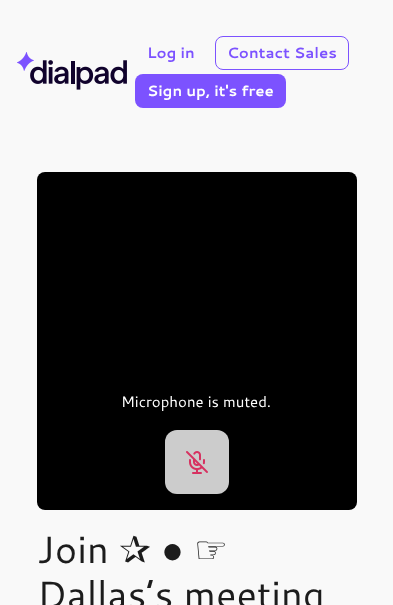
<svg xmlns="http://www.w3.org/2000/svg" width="393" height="605">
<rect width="100%" height="100%" fill="#f9f9f9"/>
<image x="17" y="52" width="110" height="38" href="media/1.png"/>
<text x="147" y="58" style="font-family:Cantarell;font-size:15px;font-weight:bold;fill:#7c52ff">Log in</text>
<rect x="215.5" y="36.5" width="133" height="33" rx="7.5" fill="none" stroke="#7c52ff"/>
<text x="227" y="58" style="font-family:Cantarell;font-size:15px;font-weight:bold;fill:#7c52ff">Contact Sales</text>
<rect x="135" y="74" width="151" height="34" rx="8" fill="#7c52ff"/>
<text x="147" y="96" style="font-family:Cantarell;font-size:15px;font-weight:bold;fill:#fff">Sign up, it's free</text>
<rect x="37" y="172" width="320" height="338" rx="8" fill="#000"/>
<text x="121" y="407" style="font-family:Cantarell;font-size:15px;fill:#fff">Microphone is muted.</text>
<rect x="165" y="430" width="64" height="64" rx="12" fill="#ccc"/>
<image x="186" y="451" width="22" height="23" href="media/2.png"/>
<text x="37" y="563" style="font-family:Cantarell;font-size:38px;fill:#1c1c1c">Join</text>
<text x="119" y="563" style="font-family:DejaVu Sans;font-size:38px;fill:#1c1c1c">✰</text>
<text x="161" y="563" style="font-family:Liberation Sans;font-size:38px;fill:#1c1c1c">●</text>
<text x="194" y="563" style="font-family:DejaVu Sans;font-size:38px;fill:#1c1c1c">☞</text>
<text x="37" y="608" style="font-family:Cantarell;font-size:38px;fill:#1c1c1c">Dallas’s meeting</text>
</svg>
